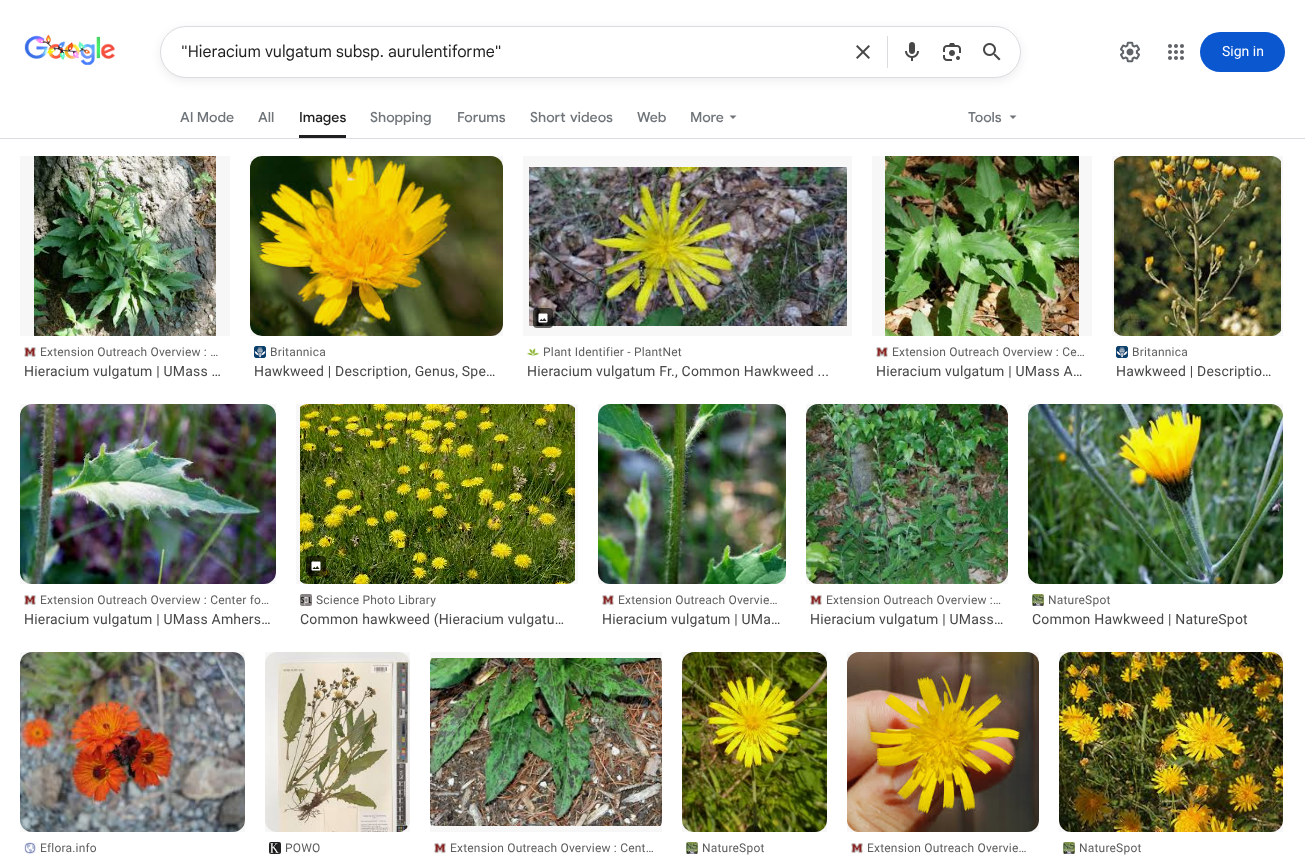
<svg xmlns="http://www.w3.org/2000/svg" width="1305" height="858">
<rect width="100%" height="100%" fill="#fff"/>
<image x="24" y="34" width="91" height="31" href="media/1.png"/>
<rect x="160" y="29" width="861" height="52" rx="26" fill="#1f1f1f14" filter="blur(5px)"/>
<rect x="160.5" y="26.5" width="860" height="51" rx="25.5" fill="#fff" stroke="#dadce0"/>
<text x="181" y="57" style="font-family:Google Sans;font-size:16px;fill:#1f1f1f">"Hieracium vulgatum subsp. aurulentiforme"</text>
<image x="856" y="45" width="14" height="14" href="media/2.png"/>
<rect x="887" y="36" width="1" height="32" fill="#dadce0"/>
<image x="905" y="42" width="14" height="19" href="media/3.png"/>
<image x="943" y="43" width="18" height="18" href="media/4.png"/>
<image x="983" y="43" width="18" height="18" href="media/5.png"/>
<image x="1120" y="41" width="20" height="22" href="media/6.png"/>
<image x="1168" y="44" width="16" height="16" href="media/7.png"/>
<rect x="1200" y="32" width="85" height="40" rx="20" fill="#0b57d0"/>
<text x="1222" y="56" style="font-family:Roboto;font-size:14px;fill:#fff">Sign in</text>
<text x="180" y="122" style="font-family:Google Sans;font-size:14px;font-weight:500;fill:#70757a">AI Mode</text>
<text x="258" y="122" style="font-family:Google Sans;font-size:14px;font-weight:500;fill:#70757a">All</text>
<rect x="299" y="135" width="47" height="3" fill="#1f1f1f"/>
<text x="299" y="122" style="font-family:Google Sans;font-size:14px;font-weight:500;fill:#1f1f1f">Images</text>
<text x="370" y="122" style="font-family:Google Sans;font-size:14px;font-weight:500;fill:#70757a">Shopping</text>
<text x="457" y="122" style="font-family:Google Sans;font-size:14px;font-weight:500;fill:#70757a">Forums</text>
<text x="530" y="122" word-spacing="1" style="font-family:Google Sans;font-size:14px;font-weight:500;fill:#70757a">Short videos</text>
<text x="637" y="122" style="font-family:Google Sans;font-size:14px;font-weight:500;fill:#70757a">Web</text>
<text x="690" y="122" style="font-family:Google Sans;font-size:14px;font-weight:500;fill:#70757a">More</text>
<path d="M729.5 115.5l3.5 3.5l3.5-3.5z" fill="#70757a"/>
<text x="968" y="122" style="font-family:Google Sans;font-size:14px;font-weight:500;fill:#70757a">Tools</text>
<path d="M1009.5 115.5l3.5 3.5l3.5-3.5z" fill="#70757a"/>
<rect y="138" width="1305" height="1" fill="#dadce0"/>
<image x="34" y="156" width="182" height="180" href="media/8.png"/>
<rect x="20" y="156" width="210" height="180" fill="#00000008"/>
<image x="24" y="347" width="12" height="11" href="media/9.png"/>
<text x="40" y="356" style="font-family:Roboto;font-size:12px;letter-spacing:0.2px;fill:#5e5e5e">Extension Outreach Overview : …</text>
<text x="24" y="376" style="font-family:Roboto;font-size:14px;letter-spacing:0.2px;fill:#474747">Hieracium vulgatum | UMass …</text>
<image x="250" y="156" width="253" height="180" href="media/10.png"/>
<rect x="250" y="156" width="253" height="180" fill="#00000008"/>
<image x="254" y="346" width="12" height="12" href="media/11.png"/>
<text x="270" y="356" style="font-family:Roboto;font-size:12px;letter-spacing:0.2px;fill:#5e5e5e">Britannica</text>
<text x="254" y="376" style="font-family:Roboto;font-size:14px;letter-spacing:0.2px;fill:#474747">Hawkweed | Description, Genus, Spe…</text>
<image x="529" y="167" width="318" height="159" href="media/12.png"/>
<rect x="523" y="156" width="329" height="180" fill="#00000008"/>
<rect x="533" y="308" width="20" height="20" rx="4" fill="#00000099"/>
<image x="538" y="313" width="10" height="10" href="media/13.png"/>
<image x="527" y="348" width="12" height="8" href="media/14.png"/>
<text x="543" y="356" style="font-family:Roboto;font-size:12px;letter-spacing:0.2px;fill:#5e5e5e">Plant Identifier - PlantNet</text>
<text x="527" y="376" style="font-family:Roboto;font-size:14px;letter-spacing:0.2px;fill:#474747">Hieracium vulgatum Fr., Common Hawkweed ...</text>
<image x="885" y="156" width="194" height="180" href="media/15.png"/>
<rect x="872" y="156" width="220" height="180" fill="#00000008"/>
<image x="876" y="347" width="12" height="11" href="media/9.png"/>
<text x="892" y="356" style="font-family:Roboto;font-size:12px;letter-spacing:0.2px;fill:#5e5e5e">Extension Outreach Overview : Ce…</text>
<text x="876" y="376" style="font-family:Roboto;font-size:14px;letter-spacing:0.2px;fill:#474747">Hieracium vulgatum | UMass A…</text>
<image x="1114" y="156" width="167" height="180" href="media/16.png"/>
<rect x="1112" y="156" width="171" height="180" fill="#00000008"/>
<image x="1116" y="346" width="12" height="12" href="media/17.png"/>
<text x="1132" y="356" style="font-family:Roboto;font-size:12px;letter-spacing:0.2px;fill:#5e5e5e">Britannica</text>
<text x="1116" y="376" style="font-family:Roboto;font-size:14px;letter-spacing:0.2px;fill:#474747">Hawkweed | Descriptio…</text>
<image x="20" y="404" width="256" height="180" href="media/18.png"/>
<rect x="20" y="404" width="256" height="180" fill="#00000008"/>
<image x="24" y="595" width="12" height="11" href="media/9.png"/>
<text x="40" y="604" style="font-family:Roboto;font-size:12px;letter-spacing:0.2px;fill:#5e5e5e">Extension Outreach Overview : Center fo…</text>
<text x="24" y="624" style="font-family:Roboto;font-size:14px;letter-spacing:0.2px;fill:#474747">Hieracium vulgatum | UMass Amhers…</text>
<image x="300" y="404" width="275" height="180" href="media/19.png"/>
<rect x="296" y="404" width="282" height="180" fill="#00000008"/>
<rect x="306" y="556" width="20" height="20" rx="4" fill="#00000099"/>
<image x="311" y="561" width="10" height="10" href="media/20.png"/>
<image x="300" y="594" width="12" height="12" href="media/21.png"/>
<text x="316" y="604" style="font-family:Roboto;font-size:12px;letter-spacing:0.2px;fill:#5e5e5e">Science Photo Library</text>
<text x="300" y="624" style="font-family:Roboto;font-size:14px;letter-spacing:0.2px;fill:#474747">Common hawkweed (Hieracium vulgatu…</text>
<image x="598" y="404" width="188" height="180" href="media/22.png"/>
<rect x="598" y="404" width="188" height="180" fill="#00000008"/>
<image x="602" y="595" width="12" height="11" href="media/23.png"/>
<text x="618" y="604" style="font-family:Roboto;font-size:12px;letter-spacing:0.2px;fill:#5e5e5e">Extension Outreach Overvie…</text>
<text x="602" y="624" style="font-family:Roboto;font-size:14px;letter-spacing:0.2px;fill:#474747">Hieracium vulgatum | UMa…</text>
<image x="806" y="404" width="202" height="180" href="media/24.png"/>
<rect x="806" y="404" width="202" height="180" fill="#00000008"/>
<image x="810" y="595" width="12" height="11" href="media/9.png"/>
<text x="826" y="604" style="font-family:Roboto;font-size:12px;letter-spacing:0.2px;fill:#5e5e5e">Extension Outreach Overview :…</text>
<text x="810" y="624" style="font-family:Roboto;font-size:14px;letter-spacing:0.2px;fill:#474747">Hieracium vulgatum | UMass…</text>
<image x="1028" y="404" width="255" height="180" href="media/25.png"/>
<rect x="1028" y="404" width="255" height="180" fill="#00000008"/>
<image x="1032" y="594" width="12" height="12" href="media/26.png"/>
<text x="1048" y="604" style="font-family:Roboto;font-size:12px;letter-spacing:0.2px;fill:#5e5e5e">NatureSpot</text>
<text x="1032" y="624" style="font-family:Roboto;font-size:14px;letter-spacing:0.2px;fill:#474747">Common Hawkweed | NatureSpot</text>
<image x="20" y="652" width="225" height="180" href="media/27.png"/>
<rect x="20" y="652" width="225" height="180" fill="#00000008"/>
<image x="24" y="842" width="12" height="12" href="media/28.png"/>
<text x="40" y="852" style="font-family:Roboto;font-size:12px;letter-spacing:0.2px;fill:#5e5e5e">Eflora.info</text>
<image x="265" y="652" width="145" height="180" href="media/29.png"/>
<rect x="265" y="652" width="145" height="180" fill="#00000008"/>
<image x="269" y="842" width="12" height="12" href="media/30.png"/>
<text x="285" y="852" style="font-family:Roboto;font-size:12px;letter-spacing:0.2px;fill:#5e5e5e">POWO</text>
<image x="430" y="658" width="232" height="168" href="media/31.png"/>
<rect x="430" y="652" width="232" height="180" fill="#00000008"/>
<image x="434" y="843" width="12" height="11" href="media/9.png"/>
<text x="450" y="852" style="font-family:Roboto;font-size:12px;letter-spacing:0.2px;fill:#5e5e5e">Extension Outreach Overview : Cent…</text>
<image x="682" y="652" width="145" height="180" href="media/32.png"/>
<rect x="682" y="652" width="145" height="180" fill="#00000008"/>
<image x="686" y="842" width="12" height="12" href="media/33.png"/>
<text x="702" y="852" style="font-family:Roboto;font-size:12px;letter-spacing:0.2px;fill:#5e5e5e">NatureSpot</text>
<image x="847" y="652" width="192" height="180" href="media/34.png"/>
<rect x="847" y="652" width="192" height="180" fill="#00000008"/>
<image x="851" y="843" width="12" height="11" href="media/23.png"/>
<text x="867" y="852" style="font-family:Roboto;font-size:12px;letter-spacing:0.2px;fill:#5e5e5e">Extension Outreach Overvie…</text>
<image x="1059" y="652" width="224" height="180" href="media/35.png"/>
<rect x="1059" y="652" width="224" height="180" fill="#00000008"/>
<image x="1063" y="842" width="12" height="12" href="media/36.png"/>
<text x="1079" y="852" style="font-family:Roboto;font-size:12px;letter-spacing:0.2px;fill:#5e5e5e">NatureSpot</text>
</svg>
